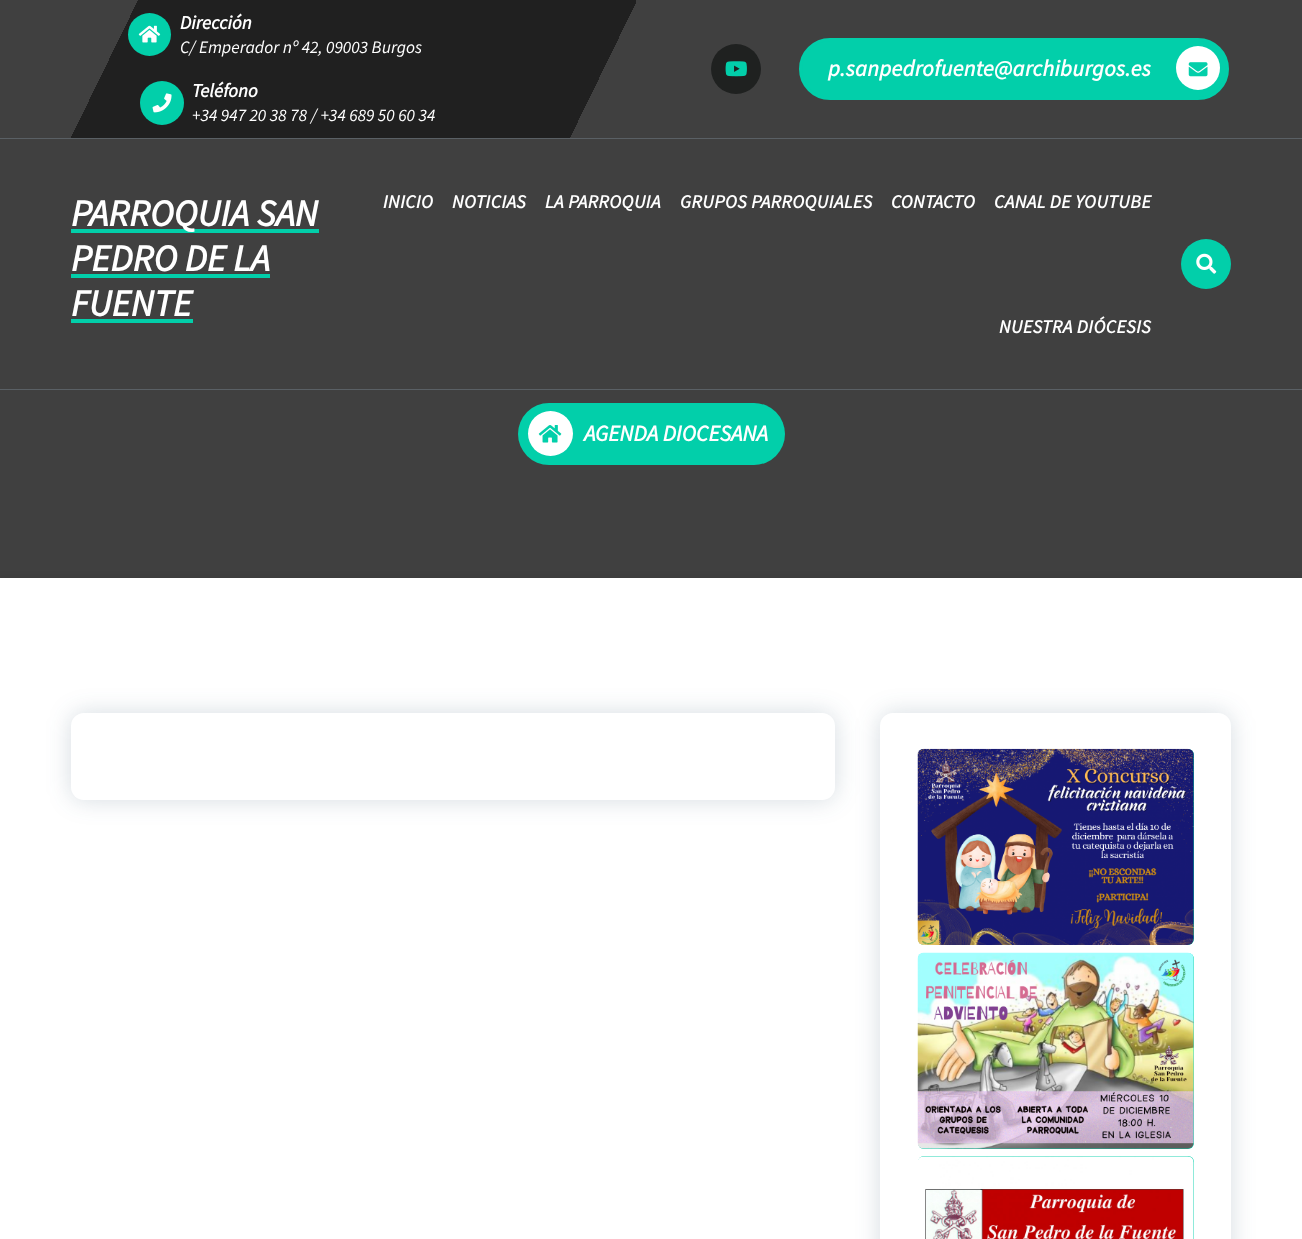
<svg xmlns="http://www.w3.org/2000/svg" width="1302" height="1239">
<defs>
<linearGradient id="g1" gradientUnits="userSpaceOnUse" x1="-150" y1="-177" x2="858" y2="315"><stop offset="0.3" stop-color="#404040"/><stop offset="0.3" stop-color="#202020"/><stop offset="0.7" stop-color="#202020"/><stop offset="0.7" stop-color="#404040"/></linearGradient>
</defs>
<rect width="100%" height="100%" fill="#404040"/>
<rect y="138" width="1302" height="1" fill="#5a6065"/>
<rect x="71" width="565" height="138" fill="url(#g1)"/>
<circle cx="149.5" cy="34.5" r="21.5" fill="#02cfaa"/>
<image x="138" y="25" width="23" height="18" href="media/1.png"/>
<text x="180" y="29" style="font-family:Source Sans Pro;font-size:19px;font-weight:bold;font-style:italic;fill:#fff">Dirección</text>
<text x="180" y="53" style="font-family:Source Sans Pro;font-size:17.5px;font-style:italic;fill:#fff">C/ Emperador nº 42, 09003 Burgos</text>
<circle cx="162" cy="103" r="22" fill="#02cfaa"/>
<image x="152" y="93" width="20" height="20" href="media/2.png"/>
<text x="192" y="97" style="font-family:Source Sans Pro;font-size:19px;font-weight:bold;font-style:italic;fill:#fff">Teléfono</text>
<text x="192" y="121" style="font-family:Source Sans Pro;font-size:17.5px;font-style:italic;fill:#fff">+34 947 20 38 78</text>
<text x="311" y="121" style="font-family:Source Sans Pro;font-size:17.5px;font-style:italic;fill:#fff">/ +34 689 50 60 34</text>
<circle cx="736" cy="69" r="25" fill="#1f2120"/>
<image x="725" y="61" width="22" height="16" href="media/3.png"/>
<rect x="800.5" y="39.5" width="427" height="59" rx="29.5" fill="#02cfaa" stroke="#02cfaa" stroke-width="3"/>
<text x="828" y="76" style="font-family:Source Sans Pro;font-size:22.5px;font-weight:bold;font-style:italic;letter-spacing:0.2px;fill:#fff">p.sanpedrofuente@archiburgos.es</text>
<circle cx="1198" cy="68" r="22" fill="#fff"/>
<image x="1188" y="62" width="20" height="15" href="media/4.png"/>
<rect y="389" width="1302" height="1" fill="#5a6065"/>
<rect x="71" y="229" width="248" height="4" fill="#02cfaa"/>
<text x="71" y="226" style="font-family:Source Sans Pro;font-size:37.5px;font-weight:bold;font-style:italic;fill:#fff">PARROQUIA SAN</text>
<text x="71" y="271" style="font-family:Source Sans Pro;font-size:37.5px;font-weight:bold;font-style:italic;fill:#fff">PEDRO DE LA</text>
<rect x="71" y="274" width="199" height="4" fill="#02cfaa"/>
<text x="71" y="316" style="font-family:Source Sans Pro;font-size:37.5px;font-weight:bold;font-style:italic;fill:#fff">FUENTE</text>
<rect x="71" y="319" width="122" height="4" fill="#02cfaa"/>
<text x="383" y="208" style="font-family:Source Sans Pro;font-size:18.75px;font-weight:bold;font-style:italic;letter-spacing:0.4px;fill:#fff">INICIO</text>
<text x="452" y="208" style="font-family:Source Sans Pro;font-size:18.75px;font-weight:bold;font-style:italic;letter-spacing:0.4px;fill:#fff">NOTICIAS</text>
<text x="545" y="208" style="font-family:Source Sans Pro;font-size:18.75px;font-weight:bold;font-style:italic;letter-spacing:0.4px;fill:#fff">LA PARROQUIA</text>
<text x="680" y="208" style="font-family:Source Sans Pro;font-size:18.75px;font-weight:bold;font-style:italic;letter-spacing:0.4px;fill:#fff">GRUPOS PARROQUIALES</text>
<text x="891" y="208" style="font-family:Source Sans Pro;font-size:18.75px;font-weight:bold;font-style:italic;letter-spacing:0.4px;fill:#fff">CONTACTO</text>
<text x="994" y="208" style="font-family:Source Sans Pro;font-size:18.75px;font-weight:bold;font-style:italic;letter-spacing:0.4px;fill:#fff">CANAL DE YOUTUBE</text>
<text x="999" y="333" style="font-family:Source Sans Pro;font-size:18.75px;font-weight:bold;font-style:italic;letter-spacing:0.4px;fill:#fff">NUESTRA DIÓCESIS</text>
<circle cx="1206" cy="264" r="25" fill="#02cfaa"/>
<image x="1196" y="253" width="21" height="21" href="media/5.png"/>
<rect x="518" y="403" width="267" height="62" rx="31" fill="#02cfaa"/>
<circle cx="550.5" cy="433.5" r="22.5" fill="#fff"/>
<image x="538" y="425" width="24" height="18" href="media/6.png"/>
<text x="584" y="441" style="font-family:Source Sans Pro;font-size:22.5px;font-weight:bold;font-style:italic;fill:#fff">AGENDA DIOCESANA</text>
<rect y="584" width="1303" height="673" fill="#0d0d0d80" filter="blur(6px)"/>
<rect y="578" width="1302" height="661" fill="#fff"/>
<rect x="71" y="713" width="764" height="87" rx="13" fill="#21446230" filter="blur(12.5px)"/>
<rect x="71" y="713" width="764" height="87" rx="13" fill="#fff"/>
<rect x="880" y="713" width="351" height="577" rx="13" fill="#21446230" filter="blur(12.5px)"/>
<rect x="880" y="713" width="351" height="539" rx="13" fill="#fff"/>
<rect x="918" y="749" width="276" height="196" rx="6" fill="#02cfaa"/>
<image x="917" y="748" width="277" height="197" href="media/7.png"/>
<rect x="918" y="953" width="276" height="196" rx="6" fill="#02cfaa"/>
<image x="917" y="952" width="277" height="197" href="media/8.png"/>
<rect x="918" y="1156" width="276" height="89" rx="6" fill="#02cfaa"/>
<image x="918" y="1156" width="276" height="83" href="media/9.png"/>
</svg>
